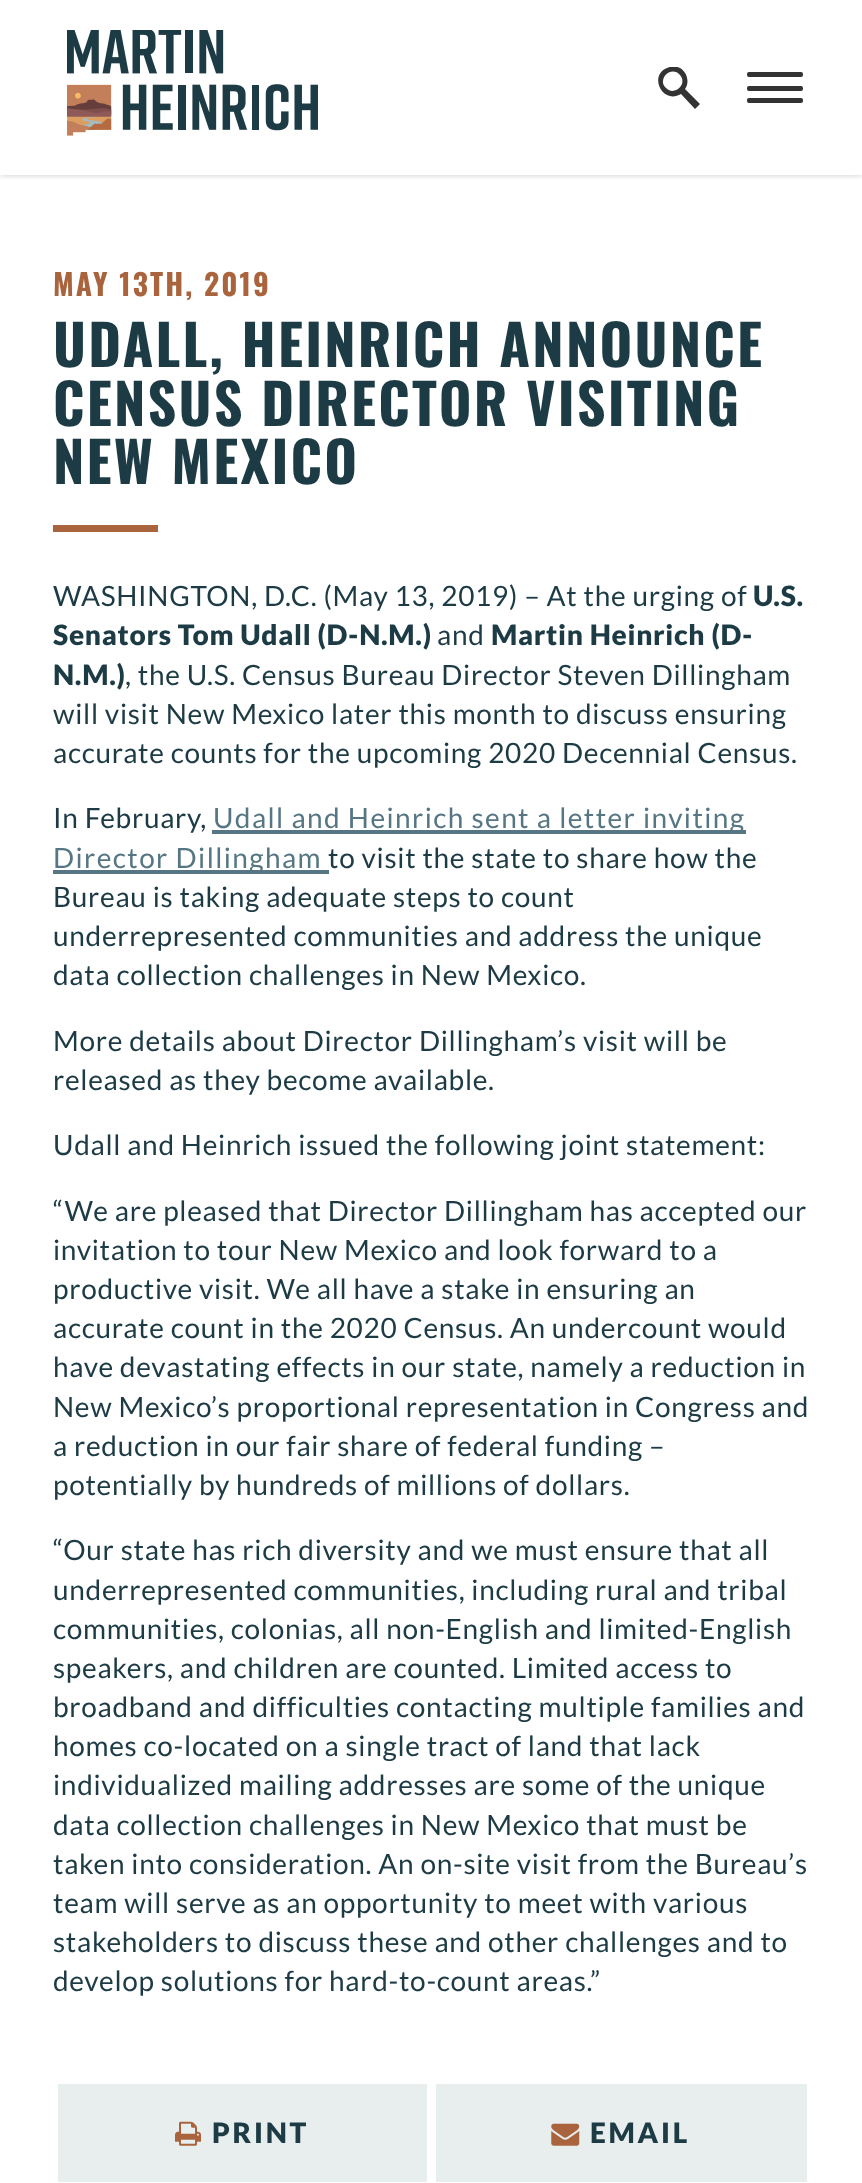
<svg xmlns="http://www.w3.org/2000/svg" width="862" height="2183">
<defs>
<clipPath id="clip1"><rect x="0" y="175" width="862" height="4"/></clipPath>
<clipPath id="clip2"><rect x="658" y="67" width="42" height="42"/></clipPath>
</defs>
<rect width="100%" height="100%" fill="#fff"/>
<g clip-path="url(#clip1)">
<rect width="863" height="175" fill="#00000033" filter="blur(3.5px)"/>
</g>
<image x="67" y="30" width="251" height="106" href="media/1.png"/>
<g clip-path="url(#clip2)">
<path d="M700 104l-15-15c5-7 2-17-5-21c-4-2-9-2-13 0c-19 8-4 37 14 26l14 15zm-34-16c-9-8 4-22 13-14c10 9-4 23-13 14z" fill="#333"/>
</g>
<rect x="747" y="72" width="56" height="5" rx="2" fill="#333"/>
<rect x="747" y="86" width="56" height="5" rx="2" fill="#333"/>
<rect x="747" y="98" width="56" height="5" rx="2" fill="#333"/>
<text x="53" y="296" style="font-family:Oswald;font-size:29.5px;font-weight:bold;letter-spacing:2.1px;fill:#a9643d">MAY 13TH, 2019</text>
<rect x="53" y="525" width="105" height="7" fill="#a9643d"/>
<text x="53" y="367" style="font-family:Oswald;font-size:56px;font-weight:bold;letter-spacing:2.2px;fill:#1d3b45">UDALL, HEINRICH ANNOUNCE</text>
<text x="53" y="426" style="font-family:Oswald;font-size:56px;font-weight:bold;letter-spacing:2.2px;fill:#1d3b45">CENSUS DIRECTOR VISITING</text>
<text x="53" y="484" style="font-family:Oswald;font-size:56px;font-weight:bold;letter-spacing:2.2px;fill:#1d3b45">NEW MEXICO</text>
<text x="53" y="606" style="font-family:Lato;font-size:28px;letter-spacing:0.7px;fill:#1d3b45">WASHINGTON, D.C. (May 13, 2019) – At the urging of</text>
<text x="753" y="606" style="font-family:Lato;font-size:28px;font-weight:900;letter-spacing:0.7px;fill:#1d3b45">U.S.</text>
<text x="53" y="645" style="font-family:Lato;font-size:28px;font-weight:900;letter-spacing:0.7px;fill:#1d3b45">Senators Tom Udall (D-N.M.)</text>
<text x="437" y="645" style="font-family:Lato;font-size:28px;letter-spacing:0.7px;fill:#1d3b45">and</text>
<text x="491" y="645" style="font-family:Lato;font-size:28px;font-weight:900;letter-spacing:0.7px;fill:#1d3b45">Martin Heinrich (D-</text>
<text x="53" y="685" style="font-family:Lato;font-size:28px;font-weight:900;letter-spacing:0.7px;fill:#1d3b45">N.M.)</text>
<text x="125" y="685" style="font-family:Lato;font-size:28px;letter-spacing:0.7px;fill:#1d3b45">, the U.S. Census Bureau Director Steven Dillingham</text>
<text x="53" y="724" style="font-family:Lato;font-size:28px;letter-spacing:0.7px;fill:#1d3b45">will visit New Mexico later this month to discuss ensuring</text>
<text x="53" y="763" style="font-family:Lato;font-size:28px;letter-spacing:0.7px;fill:#1d3b45">accurate counts for the upcoming 2020 Decennial Census.</text>
<text x="53" y="828" style="font-family:Lato;font-size:28px;letter-spacing:0.7px;fill:#1d3b45">In February,</text>
<rect x="212" y="830" width="534" height="4" fill="#557682"/>
<text x="213" y="828" style="font-family:Lato;font-size:28px;letter-spacing:1.4px;fill:#557682">Udall and Heinrich sent a letter inviting</text>
<rect x="53" y="870" width="276" height="4" fill="#557682"/>
<text x="53" y="868" style="font-family:Lato;font-size:28px;letter-spacing:1.4px;fill:#557682">Director Dillingham</text>
<text x="328" y="868" style="font-family:Lato;font-size:28px;letter-spacing:0.7px;fill:#1d3b45">to visit the state to share how the</text>
<text x="53" y="907" style="font-family:Lato;font-size:28px;letter-spacing:0.7px;fill:#1d3b45">Bureau is taking adequate steps to count</text>
<text x="53" y="946" style="font-family:Lato;font-size:28px;letter-spacing:0.7px;fill:#1d3b45">underrepresented communities and address the unique</text>
<text x="53" y="985" style="font-family:Lato;font-size:28px;letter-spacing:0.7px;fill:#1d3b45">data collection challenges in New Mexico.</text>
<text x="53" y="1051" style="font-family:Lato;font-size:28px;letter-spacing:0.7px;fill:#1d3b45">More details about Director Dillingham’s visit will be</text>
<text x="53" y="1090" style="font-family:Lato;font-size:28px;letter-spacing:0.7px;fill:#1d3b45">released as they become available.</text>
<text x="53" y="1155" style="font-family:Lato;font-size:28px;letter-spacing:0.7px;fill:#1d3b45">Udall and Heinrich issued the following joint statement:</text>
<text x="53" y="1221" style="font-family:Lato;font-size:28px;letter-spacing:0.7px;fill:#1d3b45">“We are pleased that Director Dillingham has accepted our</text>
<text x="53" y="1260" style="font-family:Lato;font-size:28px;letter-spacing:0.7px;fill:#1d3b45">invitation to tour New Mexico and look forward to a</text>
<text x="53" y="1299" style="font-family:Lato;font-size:28px;letter-spacing:0.7px;fill:#1d3b45">productive visit. We all have a stake in ensuring an</text>
<text x="53" y="1338" style="font-family:Lato;font-size:28px;letter-spacing:0.7px;fill:#1d3b45">accurate count in the 2020 Census. An undercount would</text>
<text x="53" y="1377" style="font-family:Lato;font-size:28px;letter-spacing:0.7px;fill:#1d3b45">have devastating effects in our state, namely a reduction in</text>
<text x="53" y="1417" style="font-family:Lato;font-size:28px;letter-spacing:0.7px;fill:#1d3b45">New Mexico’s proportional representation in Congress and</text>
<text x="53" y="1456" style="font-family:Lato;font-size:28px;letter-spacing:0.7px;fill:#1d3b45">a reduction in our fair share of federal funding –</text>
<text x="53" y="1495" style="font-family:Lato;font-size:28px;letter-spacing:0.7px;fill:#1d3b45">potentially by hundreds of millions of dollars.</text>
<text x="53" y="1560" style="font-family:Lato;font-size:28px;letter-spacing:0.7px;fill:#1d3b45">“Our state has rich diversity and we must ensure that all</text>
<text x="53" y="1600" style="font-family:Lato;font-size:28px;letter-spacing:0.7px;fill:#1d3b45">underrepresented communities, including rural and tribal</text>
<text x="53" y="1639" style="font-family:Lato;font-size:28px;letter-spacing:0.7px;fill:#1d3b45">communities, colonias, all non-English and limited-English</text>
<text x="53" y="1678" style="font-family:Lato;font-size:28px;letter-spacing:0.7px;fill:#1d3b45">speakers, and children are counted. Limited access to</text>
<text x="53" y="1717" style="font-family:Lato;font-size:28px;letter-spacing:0.7px;fill:#1d3b45">broadband and difficulties contacting multiple families and</text>
<text x="53" y="1756" style="font-family:Lato;font-size:28px;letter-spacing:0.7px;fill:#1d3b45">homes co-located on a single tract of land that lack</text>
<text x="53" y="1795" style="font-family:Lato;font-size:28px;letter-spacing:0.7px;fill:#1d3b45">individualized mailing addresses are some of the unique</text>
<text x="53" y="1835" style="font-family:Lato;font-size:28px;letter-spacing:0.7px;fill:#1d3b45">data collection challenges in New Mexico that must be</text>
<text x="53" y="1874" style="font-family:Lato;font-size:28px;letter-spacing:0.7px;fill:#1d3b45">taken into consideration. An on-site visit from the Bureau’s</text>
<text x="53" y="1913" style="font-family:Lato;font-size:28px;letter-spacing:0.7px;fill:#1d3b45">team will serve as an opportunity to meet with various</text>
<text x="53" y="1952" style="font-family:Lato;font-size:28px;letter-spacing:0.7px;fill:#1d3b45">stakeholders to discuss these and other challenges and to</text>
<text x="53" y="1991" style="font-family:Lato;font-size:28px;letter-spacing:0.7px;fill:#1d3b45">develop solutions for hard-to-count areas.”</text>
<rect x="58" y="2084" width="369" height="98" fill="#e8eded"/>
<image x="175" y="2121" width="26" height="25" href="media/2.png"/>
<text x="212" y="2143" style="font-family:Lato;font-size:28px;font-weight:900;letter-spacing:2.75px;fill:#1d3b45">PRINT</text>
<rect x="436" y="2084" width="371" height="98" fill="#e8eded"/>
<image x="551" y="2123" width="29" height="23" href="media/3.png"/>
<text x="590" y="2143" style="font-family:Lato;font-size:28px;font-weight:900;letter-spacing:2.75px;fill:#1d3b45">EMAIL</text>
</svg>
